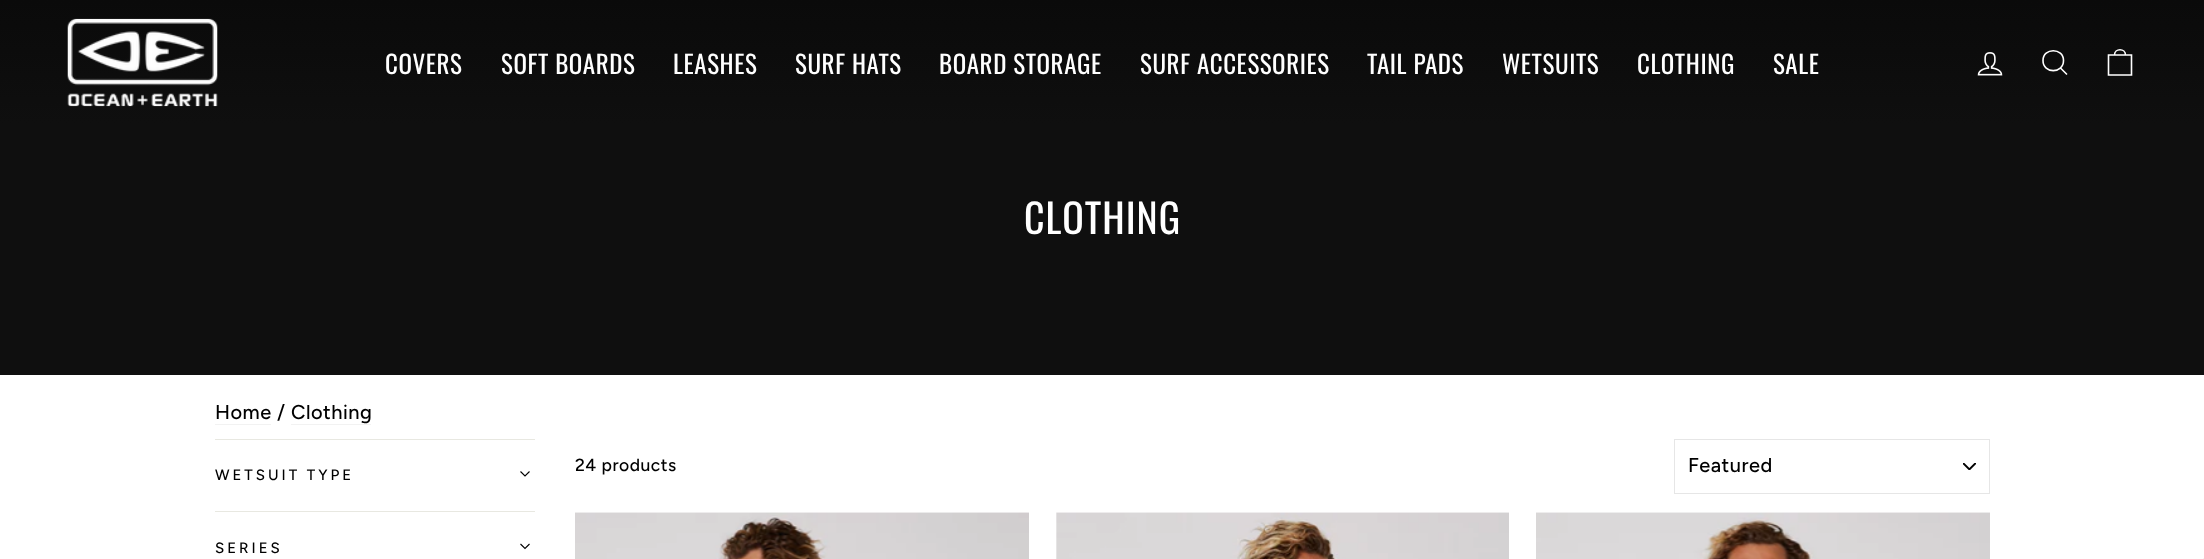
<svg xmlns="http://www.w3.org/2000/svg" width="2204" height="559">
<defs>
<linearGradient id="g1" gradientUnits="userSpaceOnUse" x1="1103" y1="0" x2="1103" y2="125"><stop offset="0" stop-color="#0a0a0a"/><stop offset="1" stop-color="#0f0f0f"/></linearGradient>
</defs>
<rect width="100%" height="100%" fill="#fff"/>
<rect width="2204" height="125" fill="url(#g1)"/>
<image x="67" y="18" width="151" height="89" href="media/1.png"/>
<text x="385" y="74" style="font-family:Oswald;font-size:25px;letter-spacing:0.6px;fill:#fff">COVERS</text>
<text x="501" y="74" style="font-family:Oswald;font-size:25px;letter-spacing:0.6px;fill:#fff">SOFT BOARDS</text>
<text x="673" y="74" style="font-family:Oswald;font-size:25px;letter-spacing:0.6px;fill:#fff">LEASHES</text>
<text x="795" y="74" style="font-family:Oswald;font-size:25px;letter-spacing:0.6px;fill:#fff">SURF HATS</text>
<text x="939" y="74" style="font-family:Oswald;font-size:25px;letter-spacing:0.6px;fill:#fff">BOARD STORAGE</text>
<text x="1140" y="74" style="font-family:Oswald;font-size:25px;letter-spacing:0.6px;fill:#fff">SURF ACCESSORIES</text>
<text x="1367" y="74" style="font-family:Oswald;font-size:25px;letter-spacing:0.6px;fill:#fff">TAIL PADS</text>
<text x="1502" y="74" style="font-family:Oswald;font-size:25px;letter-spacing:0.6px;fill:#fff">WETSUITS</text>
<text x="1637" y="74" style="font-family:Oswald;font-size:25px;letter-spacing:0.6px;fill:#fff">CLOTHING</text>
<text x="1773" y="74" style="font-family:Oswald;font-size:25px;letter-spacing:0.6px;fill:#fff">SALE</text>
<image x="1977" y="52" width="26" height="24" href="media/2.png"/>
<path d="M2063.5 60.5c0 13.5-20.5 13.5-20.5 0c0-13 20.5-13 20.5 0zm3.5 14l-6.5-6.5" fill="none" stroke="#fff" stroke-width="1.6"/>
<path d="M2108.5 55h23v20h-23zm6 0c0-7 11-7 11 0" fill="none" stroke="#fff" stroke-width="1.6"/>
<rect y="125" width="2204" height="250" fill="#0f0f0f"/>
<text x="1024" y="234" style="font-family:Oswald;font-size:40px;letter-spacing:1px;fill:#fff">CLOTHING</text>
<text x="215" y="419" style="font-family:Figtree;font-size:20px;font-weight:500;letter-spacing:0.5px;fill:#000">Home / Clothing</text>
<rect x="215" y="424" width="56" height="1" fill="#f2f2f2"/>
<rect x="291" y="424" width="80" height="1" fill="#f2f2f2"/>
<text x="575" y="471" style="font-family:Figtree;font-size:17.5px;font-weight:500;letter-spacing:0.5px;fill:#000">24 products</text>
<image x="1963" y="463" width="13" height="7" href="media/3.png"/>
<rect x="1674.5" y="439.5" width="315" height="54" fill="none" stroke="#e6e6e6"/>
<text x="1688" y="472" style="font-family:Figtree;font-size:20px;font-weight:500;letter-spacing:0.5px;fill:#000">Featured</text>
<image x="575" y="512" width="454" height="47" href="media/4.png"/>
<image x="1056" y="512" width="453" height="47" href="media/5.png"/>
<image x="1536" y="512" width="454" height="47" href="media/6.png"/>
<rect x="215" y="439" width="320" height="1" fill="#e8e8e1"/>
<text x="215" y="480" style="font-family:Figtree;font-size:15px;font-weight:500;letter-spacing:3px;fill:#000">WETSUIT TYPE</text>
<path d="M520.5 471.5l4.5 4.5l4.5-4.5" fill="none" stroke="#000" stroke-width="1.1"/>
<rect x="215" y="511" width="320" height="1" fill="#e8e8e1"/>
<text x="215" y="553" style="font-family:Figtree;font-size:15px;font-weight:500;letter-spacing:3px;fill:#000">SERIES</text>
<path d="M520.5 544l4.5 4.5l4.5-4.5" fill="none" stroke="#000" stroke-width="1.1"/>
<rect x="2203" y="558" width="1" height="1" fill="#f5f5f5"/>
</svg>
